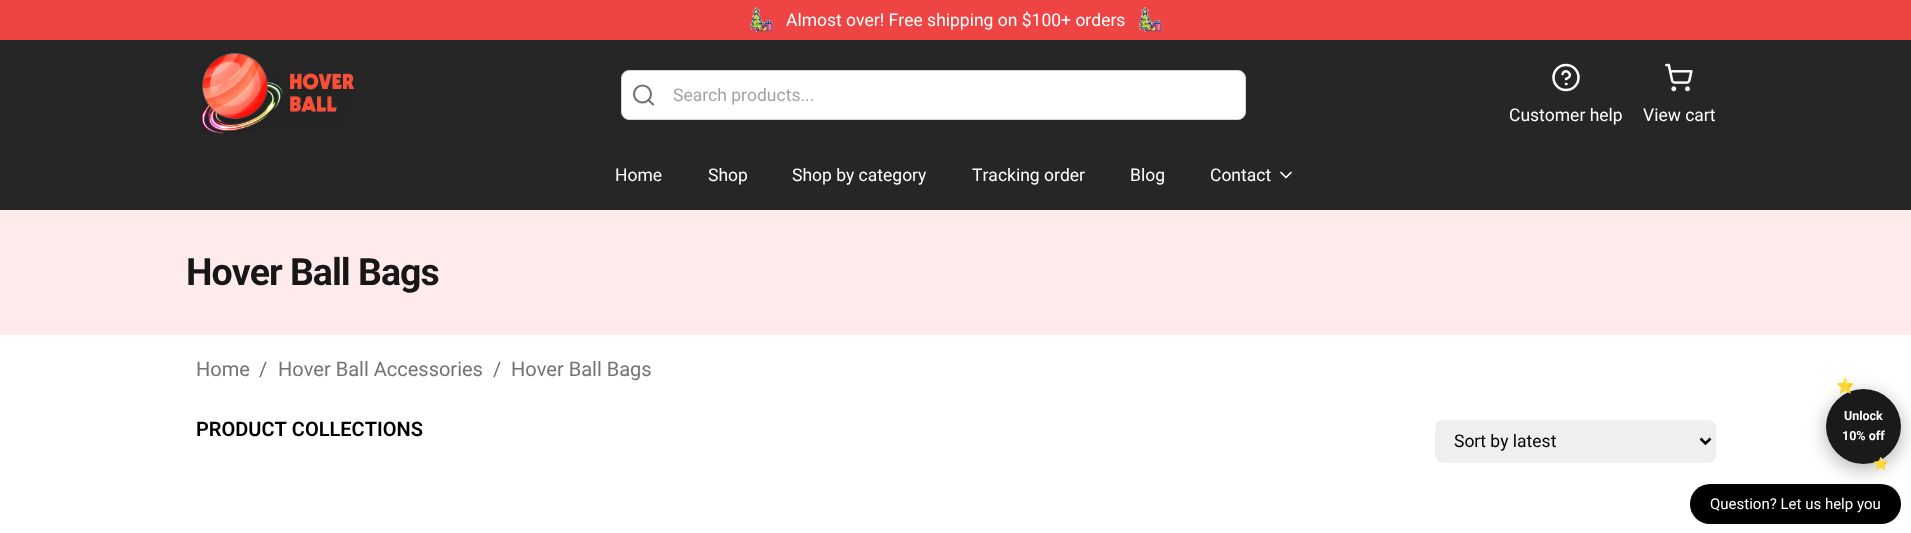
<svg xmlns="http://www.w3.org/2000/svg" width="1911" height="533">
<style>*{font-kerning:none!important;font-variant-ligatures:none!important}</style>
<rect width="100%" height="100%" fill="#fff"/>
<rect width="1911" height="40" fill="#ef4444"/>
<image x="750" y="7" width="23" height="25" href="media/1.png"/>
<text x="786" y="26" style="font-family:Roboto;font-size:17.5px;fill:#fff">Almost over! Free shipping on $100+ orders</text>
<image x="1138" y="7" width="24" height="25" href="media/2.png"/>
<rect y="40" width="1911" height="170" fill="#262626"/>
<image x="200" y="53" width="155" height="81" href="media/3.png"/>
<rect x="621.5" y="70.5" width="624" height="49" rx="7.5" fill="#fff" stroke="#d4d4d4"/>
<path d="M653 104.5l-4.5-4.5" fill="none" stroke="#737373" stroke-width="2.1" stroke-linecap="round" stroke-linejoin="round"/>
<circle cx="642.5" cy="94" r="8.5" fill="none" stroke="#737373" stroke-width="2.1"/>
<text x="673" y="101" style="font-family:Roboto;font-size:17.5px;fill:#a3a3a3">Search products...</text>
<circle cx="1566" cy="77.5" r="12.5" fill="none" stroke="#fff" stroke-width="2.5"/>
<path d="M1562.5 74c2.5-7 13 1.5 3.5 5m0 5h.5" fill="none" stroke="#fff" stroke-width="2.5" stroke-linecap="round" stroke-linejoin="round"/>
<text x="1509" y="121" style="font-family:Roboto;font-size:17.5px;fill:#fff">Customer help</text>
<image x="1665" y="63" width="28" height="29" href="media/4.png"/>
<text x="1643" y="121" style="font-family:Roboto;font-size:17.5px;fill:#fff">View cart</text>
<text x="615" y="181" style="font-family:Roboto;font-size:17.5px;fill:#fff">Home</text>
<text x="708" y="181" style="font-family:Roboto;font-size:17.5px;fill:#fff">Shop</text>
<text x="792" y="181" style="font-family:Roboto;font-size:17.5px;fill:#fff">Shop by category</text>
<text x="972" y="181" style="font-family:Roboto;font-size:17.5px;fill:#fff">Tracking order</text>
<text x="1130" y="181" style="font-family:Roboto;font-size:17.5px;fill:#fff">Blog</text>
<text x="1210" y="181" style="font-family:Roboto;font-size:17.5px;fill:#fff">Contact</text>
<path d="M1281 172.5l5 5l5-5" fill="none" stroke="#fff" stroke-width="1.7" stroke-linecap="round" stroke-linejoin="round"/>
<rect y="210" width="1911" height="125" fill="#ffebeb"/>
<text x="186" y="285" style="font-family:Roboto;font-size:37.5px;font-weight:bold;letter-spacing:-1px;fill:#171717">Hover Ball Bags</text>
<text x="196" y="376" style="font-family:Roboto;font-size:20px;fill:#737373">Home</text>
<text x="259" y="376" style="font-family:Roboto;font-size:20px;fill:#737373">/</text>
<text x="278" y="376" style="font-family:Roboto;font-size:20px;fill:#737373">Hover Ball Accessories</text>
<text x="493" y="376" style="font-family:Roboto;font-size:20px;fill:#737373">/</text>
<text x="511" y="376" style="font-family:Roboto;font-size:20px;fill:#737373">Hover Ball Bags</text>
<text x="196" y="436" style="font-family:Roboto;font-size:20px;font-weight:600;fill:#000">PRODUCT COLLECTIONS</text>
<rect x="1435" y="420" width="281" height="43" rx="8" fill="#efefef"/>
<path d="M1700.5 438.5l5 5l5-5" fill="none" stroke="#000" stroke-width="2.5"/>
<text x="1454" y="447" style="font-family:Roboto;font-size:17.5px;fill:#000">Sort by latest</text>
<rect x="1690" y="484" width="211" height="40" rx="20" fill="#000"/>
<rect x="1826" y="394" width="75" height="75" rx="37.5" fill="#0000004d" filter="blur(9.5px)"/>
<circle cx="1863.5" cy="426.5" r="37.5" fill="#1a1a1a"/>
<text x="1836" y="391" style="font-family:Noto Color Emoji;font-size:15px;font-weight:bold;fill:#ffd700">⭐</text>
<text x="1844" y="420" style="font-family:Roboto;font-size:12.5px;font-weight:bold;fill:#fff">Unlock</text>
<text x="1842" y="440" style="font-family:Roboto;font-size:12.5px;font-weight:bold;fill:#fff">10% off</text>
<text x="1873" y="468" style="font-family:Noto Color Emoji;font-size:12.5px;font-weight:bold;fill:#ffd700">⭐</text>
<text x="1710" y="509" style="font-family:Roboto;font-size:15px;fill:#fff">Question? Let us help you</text>
</svg>
